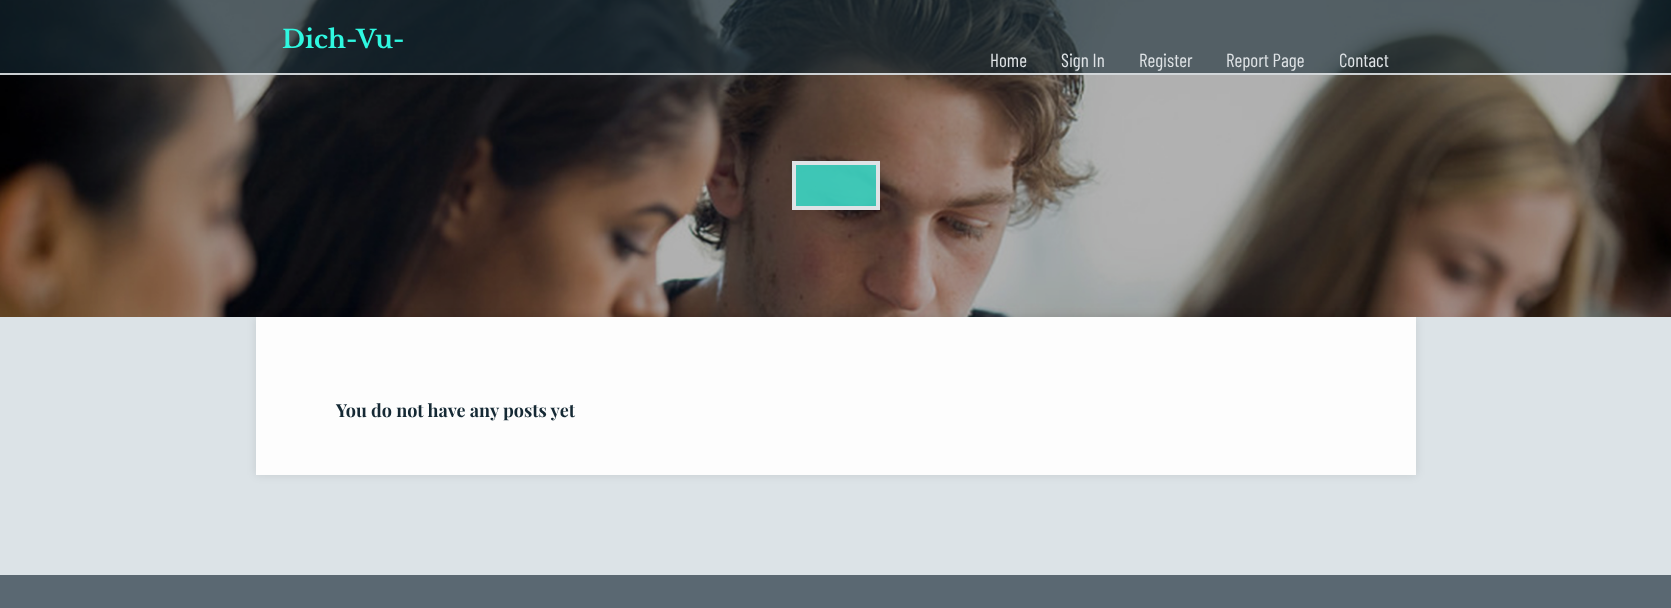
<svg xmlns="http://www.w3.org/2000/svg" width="1671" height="608">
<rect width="100%" height="100%" fill="#dce3e7"/>
<image x="0" y="0" width="1671" height="317" href="media/1.png"/>
<rect width="1671" height="75" fill="#15293499"/>
<rect y="73" width="1671" height="2" fill="#dfe3e6e6"/>
<text x="282" y="48" style="font-family:Libre Baskerville;font-size:25px;font-weight:bold;fill:#2ff7e0">Dich-Vu-</text>
<text x="990" y="67" style="font-family:Barlow Condensed;font-size:19px;fill:#dfe3e6">Home</text>
<text x="1061" y="67" style="font-family:Barlow Condensed;font-size:19px;fill:#dfe3e6">Sign In</text>
<text x="1139" y="67" style="font-family:Barlow Condensed;font-size:19px;fill:#dfe3e6">Register</text>
<text x="1226" y="67" style="font-family:Barlow Condensed;font-size:19px;fill:#dfe3e6">Report Page</text>
<text x="1339" y="67" style="font-family:Barlow Condensed;font-size:19px;fill:#dfe3e6">Contact</text>
<rect x="794" y="163" width="84" height="45" fill="#3dd6c4e6" stroke="#dfe3e6" stroke-width="4"/>
<rect x="256" y="317" width="1160" height="158" fill="#0000001a" filter="blur(5px)"/>
<rect x="256" y="317" width="1160" height="158" fill="#fdfdfd"/>
<text x="336" y="417" style="font-family:Playfair Display;font-size:18px;font-weight:bold;fill:#152934">You do not have any posts yet</text>
<rect y="575" width="1671" height="33" fill="#5a6872"/>
</svg>
